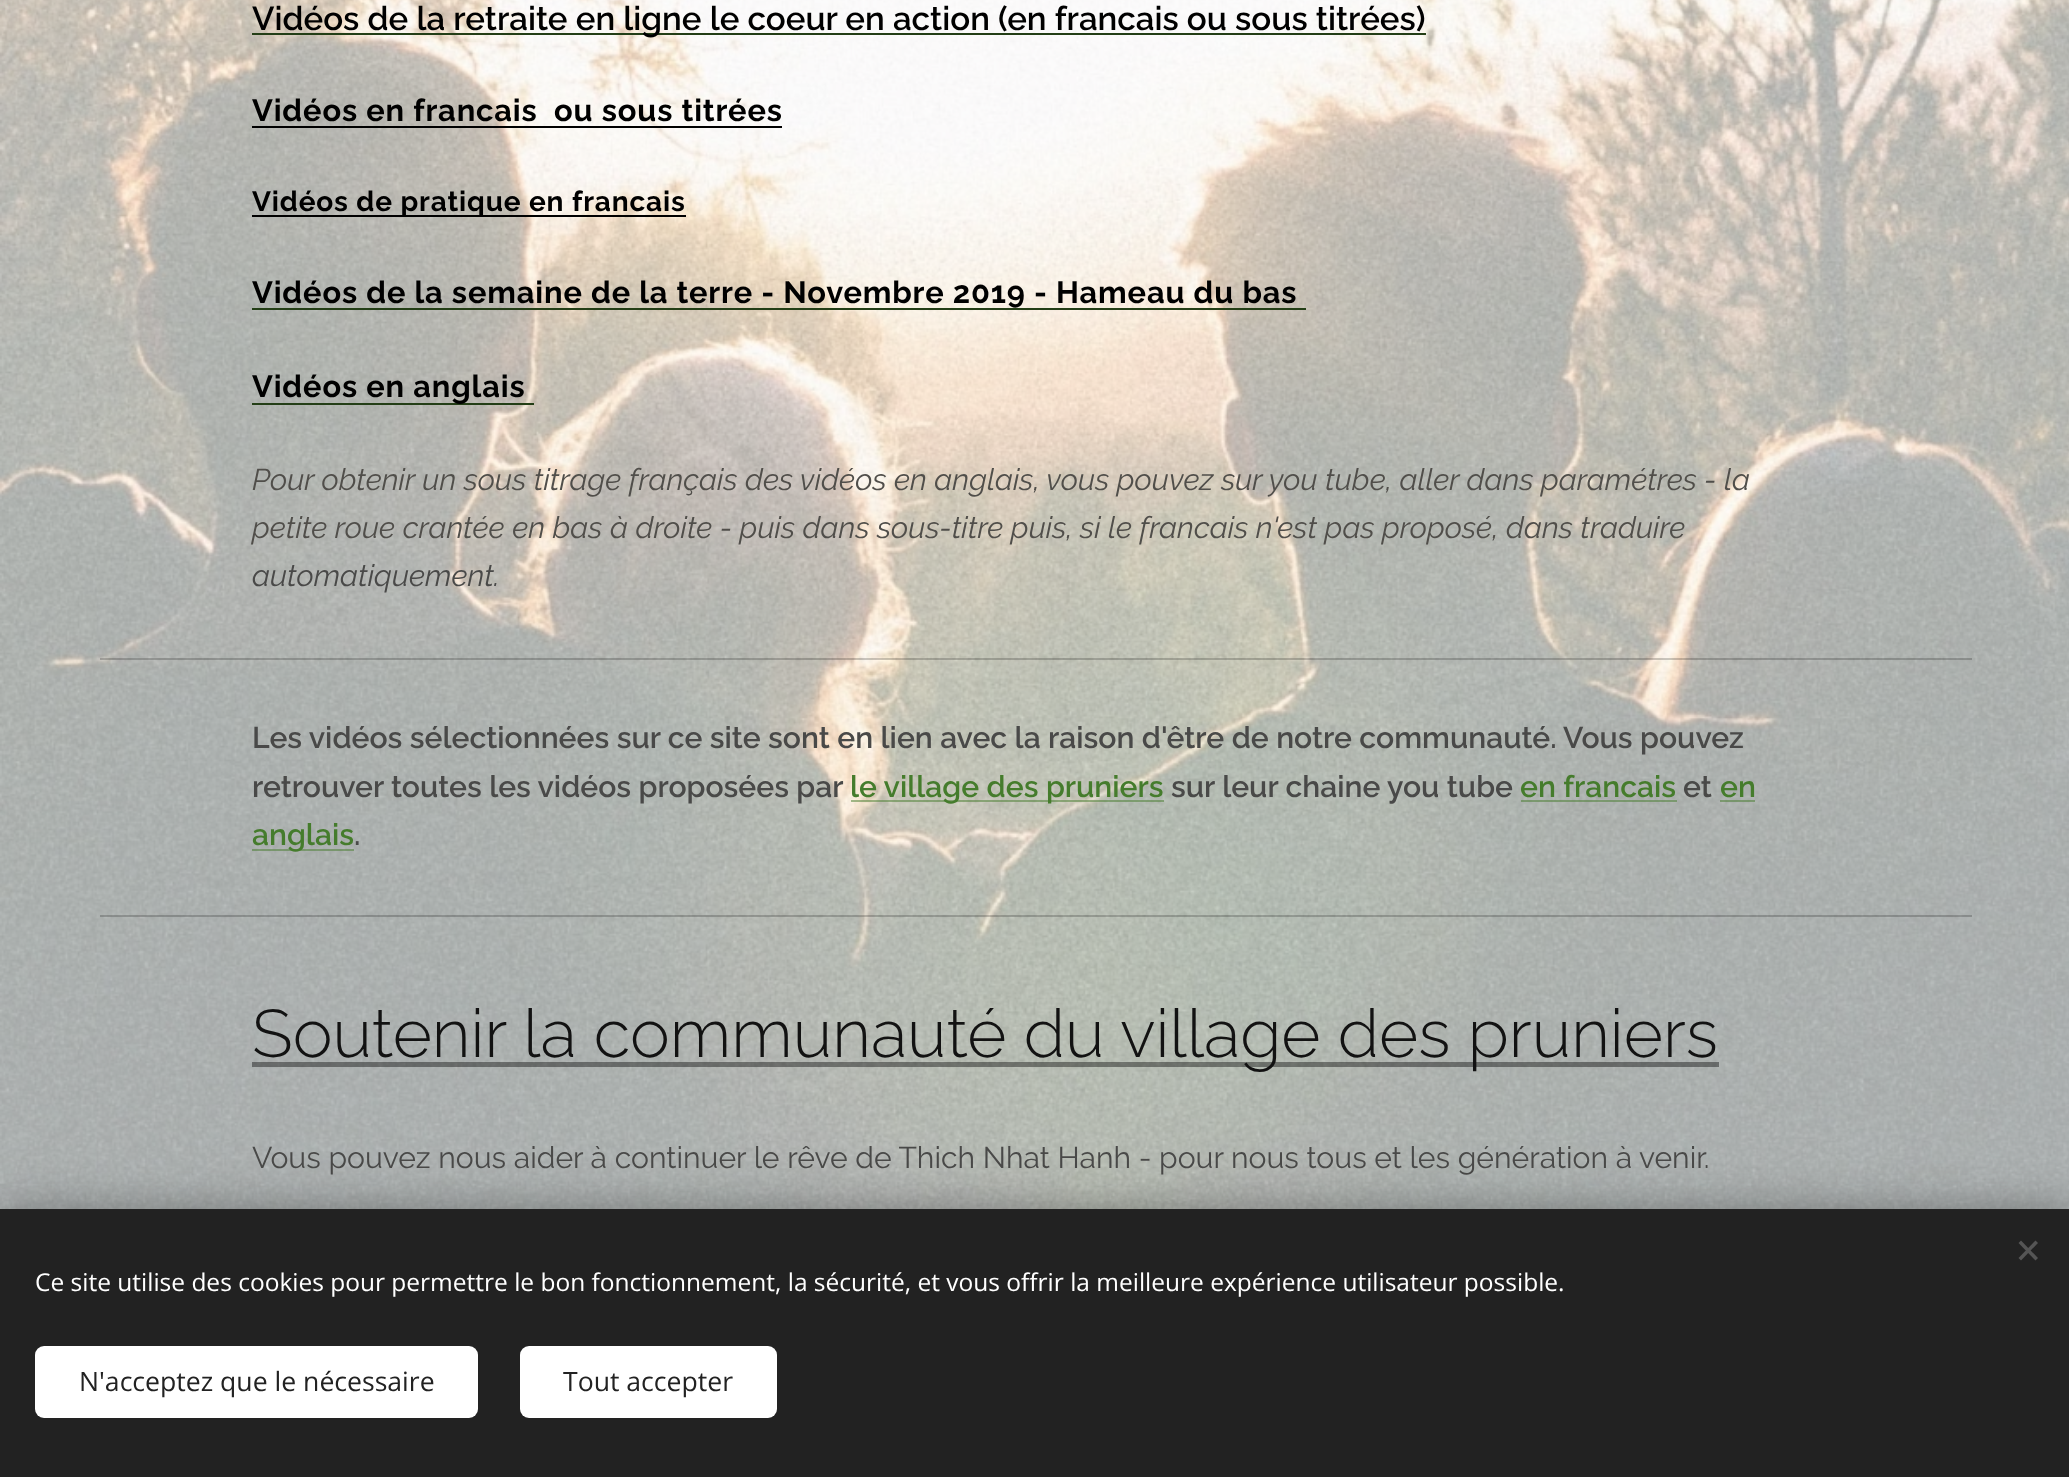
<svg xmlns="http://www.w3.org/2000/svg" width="2069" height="1477">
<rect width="100%" height="100%" fill="#fff"/>
<image x="0" y="0" width="2069" height="1209" href="media/1.png"/>
<rect x="252" y="33" width="1174" height="2" fill="#233e16"/>
<text x="252" y="30" style="font-family:Raleway;font-size:33.1px;font-weight:600;fill:#000">Vidéos de la retraite en ligne le coeur en action (en francais ou sous titrées)</text>
<text x="252" y="121" style="font-family:Raleway;font-size:30.8px;font-weight:bold;letter-spacing:0.85px;fill:#000" xml:space="preserve">Vidéos en francais  ou sous titrées</text>
<rect x="252" y="126" width="530" height="2" fill="#000"/>
<rect x="252" y="215" width="434" height="2" fill="#000"/>
<text x="252" y="211" style="font-family:Raleway;font-size:28px;font-weight:bold;letter-spacing:0.85px;fill:#000">Vidéos de pratique en francais</text>
<text x="252" y="303" style="font-family:Raleway;font-size:30.8px;font-weight:bold;letter-spacing:0.85px;fill:#000">Vidéos de la semaine de la terre - Novembre 2019 - Hameau du bas</text>
<rect x="252" y="308" width="1054" height="2" fill="#233e16"/>
<rect x="252" y="403" width="282" height="2" fill="#233e16"/>
<text x="252" y="397" style="font-family:Raleway;font-size:30.8px;font-weight:bold;letter-spacing:0.85px;fill:#000">Vidéos en anglais</text>
<text x="252" y="490" style="font-family:Raleway;font-size:30.1px;font-style:italic;fill:#504e4a">Pour obtenir un sous titrage français des vidéos en anglais, vous pouvez sur you tube, aller dans paramétres - la</text>
<text x="252" y="538" style="font-family:Raleway;font-size:30.1px;font-style:italic;fill:#504e4a">petite roue crantée en bas à droite - puis dans sous-titre puis, si le francais n'est pas proposé, dans traduire</text>
<text x="252" y="586" style="font-family:Raleway;font-size:30.1px;font-style:italic;fill:#494948">automatiquement.</text>
<rect x="100" y="658" width="1872" height="2" fill="#00000033"/>
<text x="252" y="748" style="font-family:Raleway;font-size:30.1px;font-weight:600;fill:#494948">Les vidéos sélectionnées sur ce site sont en lien avec la raison d'être de notre communauté. Vous pouvez</text>
<text x="252" y="797" style="font-family:Raleway;font-size:30.1px;font-weight:600;fill:#494948">retrouver toutes les vidéos proposées par</text>
<rect x="851" y="800" width="313" height="2" fill="#457c2c80"/>
<text x="850" y="797" style="font-family:Raleway;font-size:30.1px;font-weight:600;fill:#457c2c">le village des pruniers</text>
<text x="1171" y="797" style="font-family:Raleway;font-size:30.1px;font-weight:600;fill:#494948">sur leur chaine you tube</text>
<text x="1520" y="797" style="font-family:Raleway;font-size:30.1px;font-weight:600;fill:#457c2c">en francais</text>
<rect x="1521" y="800" width="156" height="2" fill="#457c2c80"/>
<text x="1683" y="797" style="font-family:Raleway;font-size:30.1px;font-weight:600;fill:#494948">et</text>
<text x="1720" y="797" style="font-family:Raleway;font-size:30.1px;font-weight:600;fill:#457c2c">en</text>
<rect x="1720" y="800" width="35" height="2" fill="#457c2c80"/>
<rect x="252" y="849" width="102" height="2" fill="#457c2c80"/>
<text x="252" y="845" style="font-family:Raleway;font-size:30.1px;font-weight:600;fill:#457c2c">anglais</text>
<text x="354" y="845" style="font-family:Raleway;font-size:30.1px;font-weight:600;fill:#494948">.</text>
<rect x="100" y="915" width="1872" height="2" fill="#00000033"/>
<rect x="252" y="1062" width="1467" height="5" fill="#00000066"/>
<text x="252" y="1057" style="font-family:Raleway;font-size:67.2px;font-weight:300;fill:#121212">Soutenir la communauté du village des pruniers</text>
<text x="252" y="1168" style="font-family:Raleway;font-size:30.1px;fill:#494948">Vous pouvez nous aider à continuer le rêve de Thich Nhat Hanh - pour nous tous et les génération à venir.</text>
<rect y="1209" width="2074" height="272" fill="#00000054" filter="blur(22px)"/>
<rect y="1209" width="2069" height="268" fill="#222"/>
<path d="M2018.5 1258l17-17.5l2.5 2.5l-17 17.5z" fill="#555"/>
<path d="M2021 1240.5l17 17.5l-2.5 2.5l-17-17.5z" fill="#555"/>
<text x="35" y="1291" style="font-family:Open Sans;font-size:24.5px;fill:#fff">Ce site utilise des cookies pour permettre le bon fonctionnement, la sécurité, et vous offrir la meilleure expérience utilisateur possible.</text>
<rect x="35" y="1346" width="443" height="72" rx="9" fill="#fff"/>
<text x="79" y="1391" style="font-family:Open Sans;font-size:26.6px;fill:#222">N'acceptez que le nécessaire</text>
<rect x="520" y="1346" width="257" height="72" rx="9" fill="#fff"/>
<text x="563" y="1391" style="font-family:Open Sans;font-size:26.6px;fill:#222">Tout accepter</text>
</svg>
